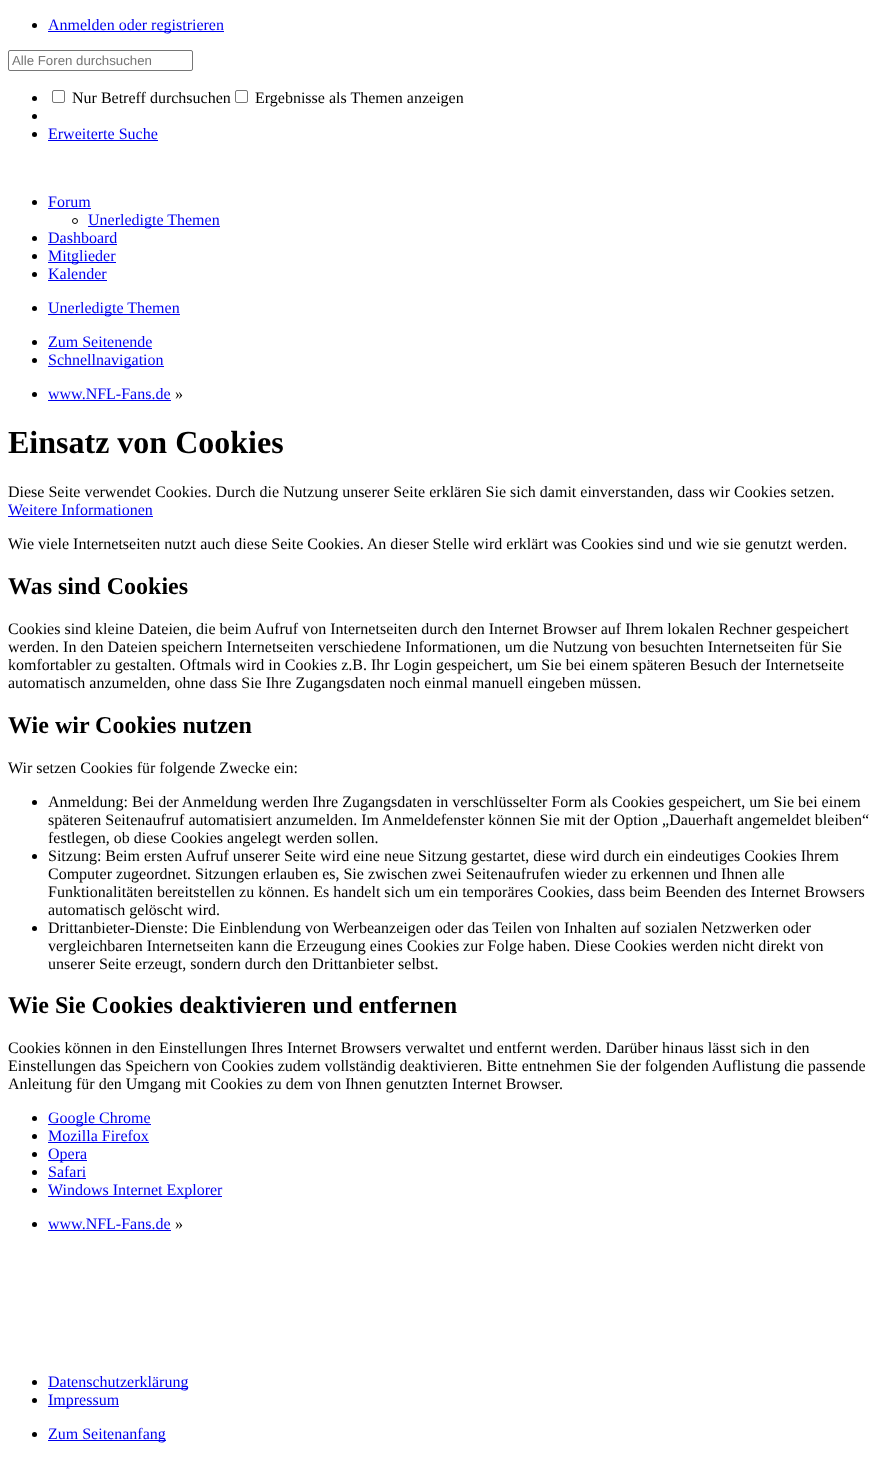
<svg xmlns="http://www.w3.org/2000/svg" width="881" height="1464">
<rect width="100%" height="100%" fill="#fff"/>
<circle cx="34.5" cy="25.5" r="2.5" fill="#000"/>
<rect x="48" y="31" width="176" height="1" fill="#00e"/>
<text x="48" y="30" style="font-family:Liberation Serif;font-size:16px;fill:#00e">Anmelden oder registrieren</text>
<rect x="8.5" y="50.5" width="184" height="20" rx="1.5" fill="none" stroke="#767676"/>
<text x="12" y="65" style="font-family:Liberation Sans;font-size:13.25px;fill:#757575">Alle Foren durchsuchen</text>
<circle cx="34.5" cy="98.5" r="2.5" fill="#000"/>
<rect x="52.5" y="90.5" width="12" height="12" rx="1.5" fill="none" stroke="#767676"/>
<text x="72" y="103" style="font-family:Liberation Serif;font-size:16px;fill:#000">Nur Betreff durchsuchen</text>
<rect x="235.5" y="90.5" width="12" height="12" rx="1.5" fill="none" stroke="#767676"/>
<text x="255" y="103" style="font-family:Liberation Serif;font-size:16px;fill:#000">Ergebnisse als Themen anzeigen</text>
<circle cx="34.5" cy="116.5" r="2.5" fill="#000"/>
<circle cx="34.5" cy="134.5" r="2.5" fill="#000"/>
<text x="48" y="139" style="font-family:Liberation Serif;font-size:16px;fill:#00e">Erweiterte Suche</text>
<rect x="48" y="140" width="110" height="1" fill="#00e"/>
<circle cx="34.5" cy="202.5" r="2.5" fill="#000"/>
<text x="48" y="207" style="font-family:Liberation Serif;font-size:16px;fill:#00e">Forum</text>
<rect x="48" y="208" width="43" height="1" fill="#00e"/>
<circle cx="75" cy="221" r="2.5" fill="none" stroke="#000"/>
<rect x="88" y="226" width="132" height="1" fill="#00e"/>
<text x="88" y="225" style="font-family:Liberation Serif;font-size:16px;fill:#00e">Unerledigte Themen</text>
<circle cx="34.5" cy="238.5" r="2.5" fill="#000"/>
<text x="48" y="243" style="font-family:Liberation Serif;font-size:16px;fill:#00e">Dashboard</text>
<rect x="48" y="244" width="69" height="1" fill="#00e"/>
<circle cx="34.5" cy="256.5" r="2.5" fill="#000"/>
<rect x="48" y="262" width="68" height="1" fill="#00e"/>
<text x="48" y="261" style="font-family:Liberation Serif;font-size:16px;fill:#00e">Mitglieder</text>
<circle cx="34.5" cy="274.5" r="2.5" fill="#000"/>
<text x="48" y="279" style="font-family:Liberation Serif;font-size:16px;fill:#00e">Kalender</text>
<rect x="48" y="280" width="59" height="1" fill="#00e"/>
<circle cx="34.5" cy="308.5" r="2.5" fill="#000"/>
<rect x="48" y="314" width="132" height="1" fill="#00e"/>
<text x="48" y="313" style="font-family:Liberation Serif;font-size:16px;fill:#00e">Unerledigte Themen</text>
<circle cx="34.5" cy="342.5" r="2.5" fill="#000"/>
<text x="48" y="347" style="font-family:Liberation Serif;font-size:16px;fill:#00e">Zum Seitenende</text>
<rect x="48" y="348" width="104" height="1" fill="#00e"/>
<circle cx="34.5" cy="360.5" r="2.5" fill="#000"/>
<rect x="48" y="366" width="116" height="1" fill="#00e"/>
<text x="48" y="365" style="font-family:Liberation Serif;font-size:16px;fill:#00e">Schnellnavigation</text>
<circle cx="34.5" cy="394.5" r="2.5" fill="#000"/>
<text x="48" y="399" style="font-family:Liberation Serif;font-size:16px;fill:#00e">www.NFL-Fans.de</text>
<rect x="48" y="400" width="123" height="1" fill="#00e"/>
<text x="175" y="399" style="font-family:Liberation Serif;font-size:16px;fill:#000">»</text>
<text x="8" y="453" style="font-family:Liberation Serif;font-size:32px;font-weight:bold;fill:#000">Einsatz von Cookies</text>
<text x="8" y="497" style="font-family:Liberation Serif;font-size:16px;fill:#000">Diese Seite verwendet Cookies. Durch die Nutzung unserer Seite erklären Sie sich damit einverstanden, dass wir Cookies setzen.</text>
<text x="8" y="515" style="font-family:Liberation Serif;font-size:16px;fill:#00e">Weitere Informationen</text>
<rect x="8" y="516" width="145" height="1" fill="#00e"/>
<text x="8" y="549" style="font-family:Liberation Serif;font-size:16px;fill:#000">Wie viele Internetseiten nutzt auch diese Seite Cookies. An dieser Stelle wird erklärt was Cookies sind und wie sie genutzt werden.</text>
<text x="8" y="594" style="font-family:Liberation Serif;font-size:24px;font-weight:bold;fill:#000">Was sind Cookies</text>
<text x="8" y="634" style="font-family:Liberation Serif;font-size:16px;fill:#000">Cookies sind kleine Dateien, die beim Aufruf von Internetseiten durch den Internet Browser auf Ihrem lokalen Rechner gespeichert</text>
<text x="8" y="652" style="font-family:Liberation Serif;font-size:16px;fill:#000">werden. In den Dateien speichern Internetseiten verschiedene Informationen, um die Nutzung von besuchten Internetseiten für Sie</text>
<text x="8" y="670" style="font-family:Liberation Serif;font-size:16px;fill:#000">komfortabler zu gestalten. Oftmals wird in Cookies z.B. Ihr Login gespeichert, um Sie bei einem späteren Besuch der Internetseite</text>
<text x="8" y="688" style="font-family:Liberation Serif;font-size:16px;fill:#000">automatisch anzumelden, ohne dass Sie Ihre Zugangsdaten noch einmal manuell eingeben müssen.</text>
<text x="8" y="733" style="font-family:Liberation Serif;font-size:24px;font-weight:bold;fill:#000">Wie wir Cookies nutzen</text>
<text x="8" y="773" style="font-family:Liberation Serif;font-size:16px;fill:#000">Wir setzen Cookies für folgende Zwecke ein:</text>
<circle cx="34.5" cy="802.5" r="2.5" fill="#000"/>
<text x="48" y="807" style="font-family:Liberation Serif;font-size:16px;fill:#000">Anmeldung: Bei der Anmeldung werden Ihre Zugangsdaten in verschlüsselter Form als Cookies gespeichert, um Sie bei einem</text>
<text x="48" y="825" style="font-family:Liberation Serif;font-size:16px;fill:#000">späteren Seitenaufruf automatisiert anzumelden. Im Anmeldefenster können Sie mit der Option „Dauerhaft angemeldet bleiben“</text>
<text x="48" y="843" style="font-family:Liberation Serif;font-size:16px;fill:#000">festlegen, ob diese Cookies angelegt werden sollen.</text>
<circle cx="34.5" cy="856.5" r="2.5" fill="#000"/>
<text x="48" y="861" style="font-family:Liberation Serif;font-size:16px;fill:#000">Sitzung: Beim ersten Aufruf unserer Seite wird eine neue Sitzung gestartet, diese wird durch ein eindeutiges Cookies Ihrem</text>
<text x="48" y="879" style="font-family:Liberation Serif;font-size:16px;fill:#000">Computer zugeordnet. Sitzungen erlauben es, Sie zwischen zwei Seitenaufrufen wieder zu erkennen und Ihnen alle</text>
<text x="48" y="897" style="font-family:Liberation Serif;font-size:16px;fill:#000">Funktionalitäten bereitstellen zu können. Es handelt sich um ein temporäres Cookies, dass beim Beenden des Internet Browsers</text>
<text x="48" y="915" style="font-family:Liberation Serif;font-size:16px;fill:#000">automatisch gelöscht wird.</text>
<circle cx="34.5" cy="928.5" r="2.5" fill="#000"/>
<text x="48" y="933" style="font-family:Liberation Serif;font-size:16px;fill:#000">Drittanbieter-Dienste: Die Einblendung von Werbeanzeigen oder das Teilen von Inhalten auf sozialen Netzwerken oder</text>
<text x="48" y="951" style="font-family:Liberation Serif;font-size:16px;fill:#000">vergleichbaren Internetseiten kann die Erzeugung eines Cookies zur Folge haben. Diese Cookies werden nicht direkt von</text>
<text x="48" y="969" style="font-family:Liberation Serif;font-size:16px;fill:#000">unserer Seite erzeugt, sondern durch den Drittanbieter selbst.</text>
<text x="8" y="1013" style="font-family:Liberation Serif;font-size:24px;font-weight:bold;fill:#000">Wie Sie Cookies deaktivieren und entfernen</text>
<text x="8" y="1053" style="font-family:Liberation Serif;font-size:16px;fill:#000">Cookies können in den Einstellungen Ihres Internet Browsers verwaltet und entfernt werden. Darüber hinaus lässt sich in den</text>
<text x="8" y="1071" style="font-family:Liberation Serif;font-size:16px;fill:#000">Einstellungen das Speichern von Cookies zudem vollständig deaktivieren. Bitte entnehmen Sie der folgenden Auflistung die passende</text>
<text x="8" y="1089" style="font-family:Liberation Serif;font-size:16px;fill:#000">Anleitung für den Umgang mit Cookies zu dem von Ihnen genutzten Internet Browser.</text>
<circle cx="34.5" cy="1118.5" r="2.5" fill="#000"/>
<rect x="48" y="1124" width="103" height="1" fill="#00e"/>
<text x="48" y="1123" style="font-family:Liberation Serif;font-size:16px;fill:#00e">Google Chrome</text>
<circle cx="34.5" cy="1136.5" r="2.5" fill="#000"/>
<text x="48" y="1141" style="font-family:Liberation Serif;font-size:16px;fill:#00e">Mozilla Firefox</text>
<rect x="48" y="1142" width="101" height="1" fill="#00e"/>
<circle cx="34.5" cy="1154.5" r="2.5" fill="#000"/>
<rect x="48" y="1160" width="39" height="1" fill="#00e"/>
<text x="48" y="1159" style="font-family:Liberation Serif;font-size:16px;fill:#00e">Opera</text>
<circle cx="34.5" cy="1172.5" r="2.5" fill="#000"/>
<text x="48" y="1177" style="font-family:Liberation Serif;font-size:16px;fill:#00e">Safari</text>
<rect x="48" y="1178" width="38" height="1" fill="#00e"/>
<circle cx="34.5" cy="1190.5" r="2.5" fill="#000"/>
<rect x="48" y="1196" width="174" height="1" fill="#00e"/>
<text x="48" y="1195" style="font-family:Liberation Serif;font-size:16px;fill:#00e">Windows Internet Explorer</text>
<circle cx="34.5" cy="1224.5" r="2.5" fill="#000"/>
<text x="48" y="1229" style="font-family:Liberation Serif;font-size:16px;fill:#00e">www.NFL-Fans.de</text>
<rect x="48" y="1230" width="123" height="1" fill="#00e"/>
<text x="175" y="1229" style="font-family:Liberation Serif;font-size:16px;fill:#000">»</text>
<circle cx="34.5" cy="1382.5" r="2.5" fill="#000"/>
<rect x="48" y="1388" width="140" height="1" fill="#00e"/>
<text x="48" y="1387" style="font-family:Liberation Serif;font-size:16px;fill:#00e">Datenschutzerklärung</text>
<circle cx="34.5" cy="1400.5" r="2.5" fill="#000"/>
<rect x="48" y="1406" width="71" height="1" fill="#00e"/>
<text x="48" y="1405" style="font-family:Liberation Serif;font-size:16px;fill:#00e">Impressum</text>
<circle cx="34.5" cy="1434.5" r="2.5" fill="#000"/>
<rect x="48" y="1440" width="118" height="1" fill="#00e"/>
<text x="48" y="1439" style="font-family:Liberation Serif;font-size:16px;fill:#00e">Zum Seitenanfang</text>
</svg>
